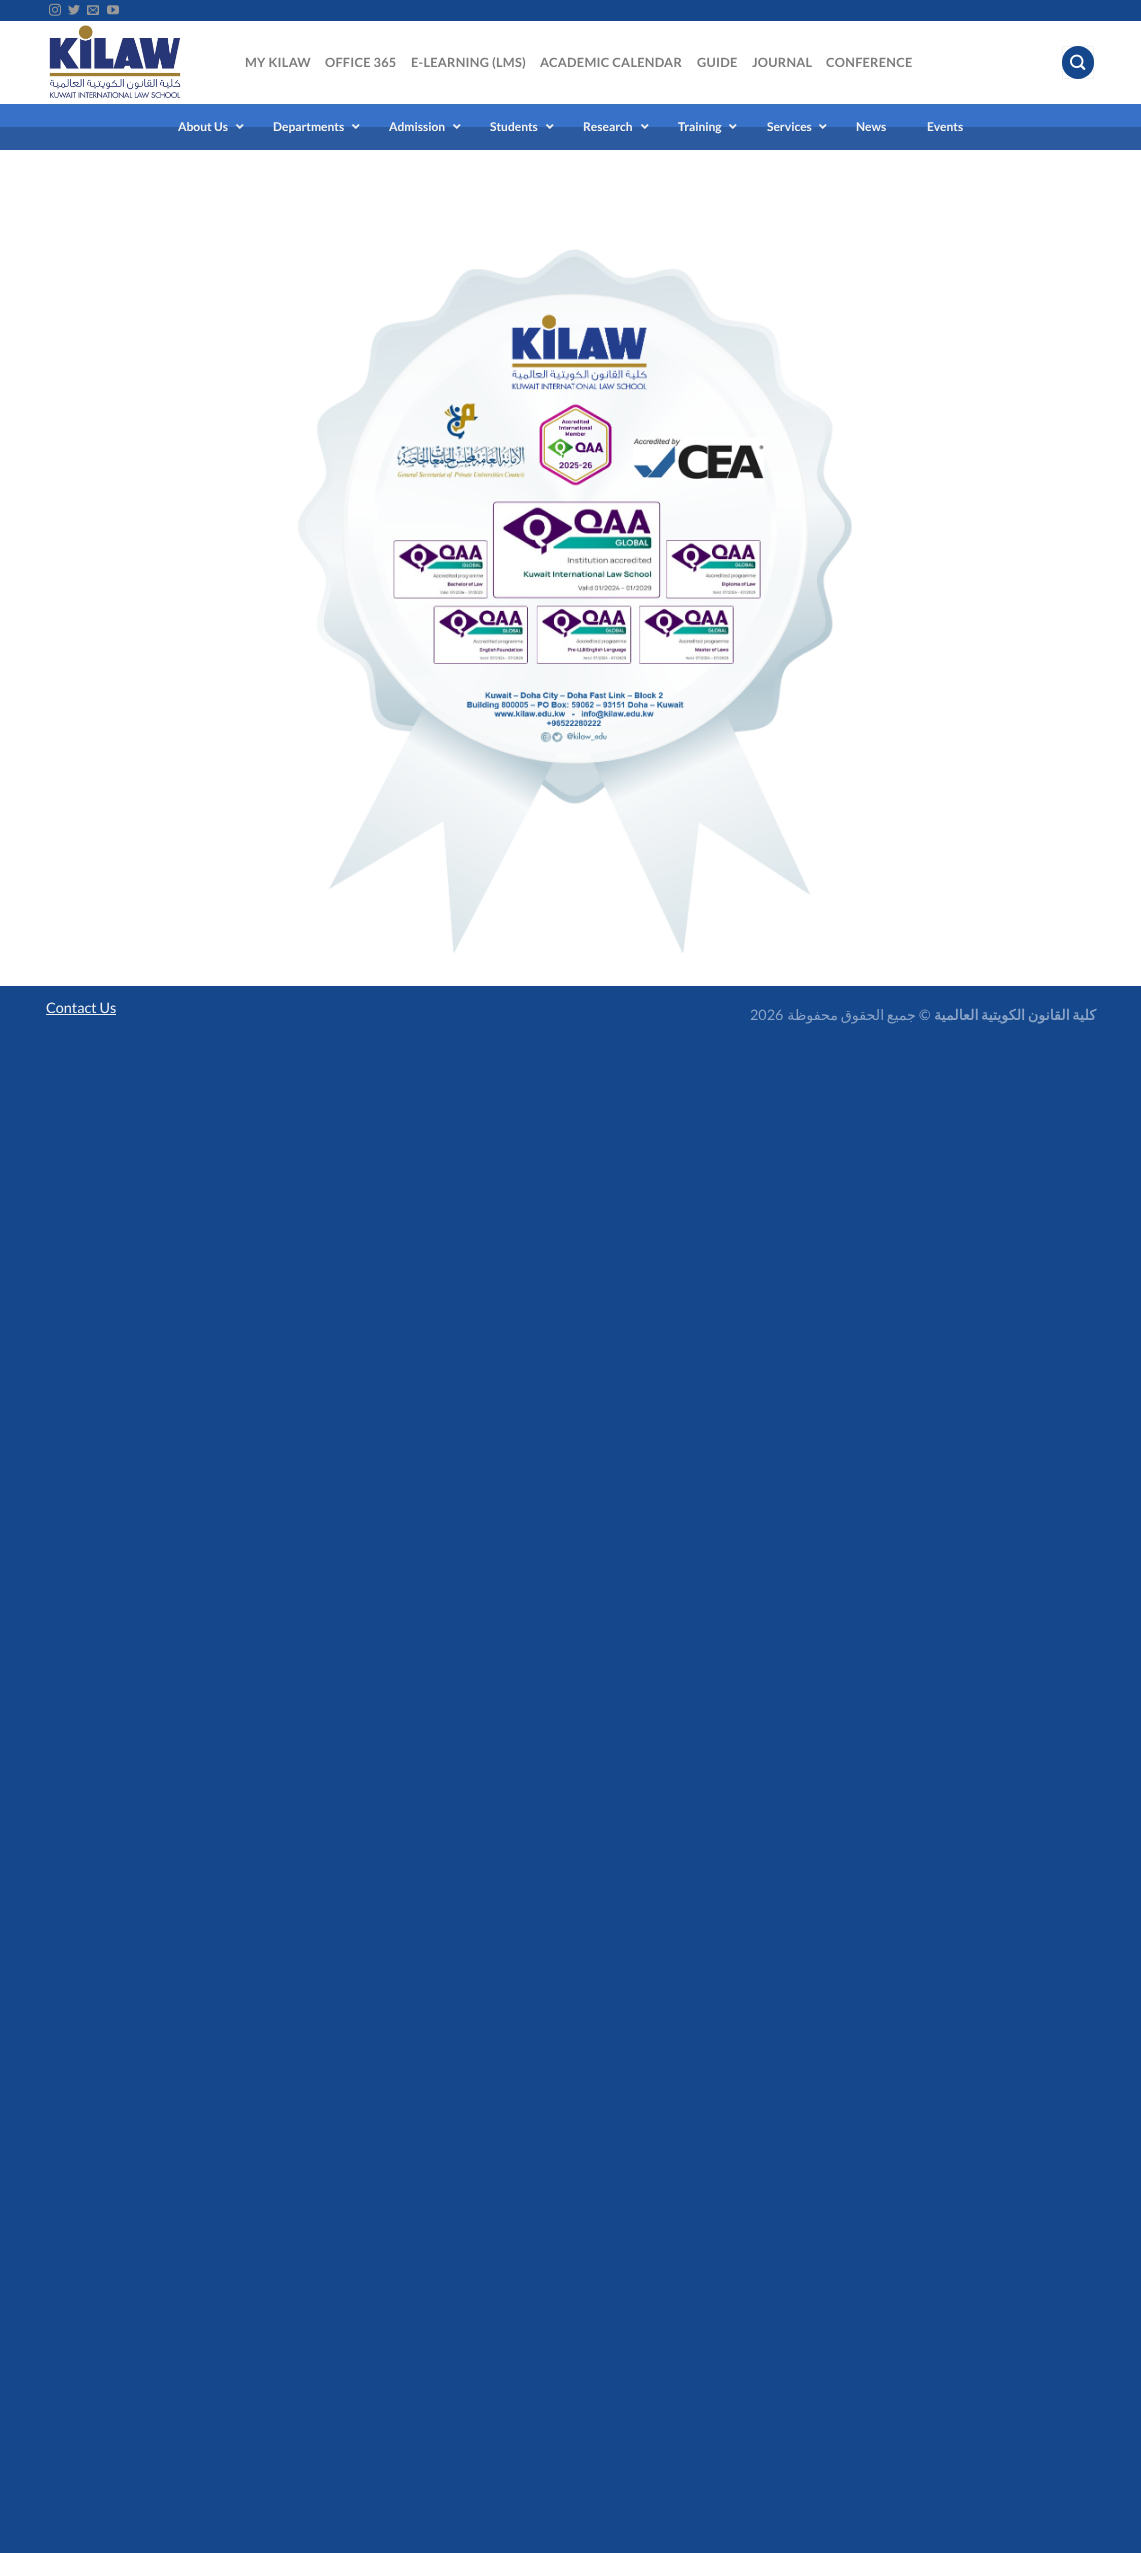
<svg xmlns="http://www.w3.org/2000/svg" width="1141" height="2553">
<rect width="100%" height="100%" fill="#14478c"/>
<rect y="21" width="1141" height="965" fill="#fff"/>
<image x="49" y="3" width="12" height="13" href="media/1.png"/>
<image x="68" y="4" width="12" height="11" href="media/2.png"/>
<image x="87" y="5" width="12" height="10" href="media/3.png"/>
<image x="107" y="5" width="12" height="10" href="media/4.png"/>
<image x="49" y="25" width="132" height="74" href="media/5.png"/>
<text x="245" y="67" style="font-family:Lato;font-size:12.75px;font-weight:bold;letter-spacing:0.25px;fill:#7d7d7d">MY KILAW</text>
<text x="325" y="67" style="font-family:Lato;font-size:12.75px;font-weight:bold;letter-spacing:0.25px;fill:#7d7d7d">OFFICE 365</text>
<text x="411" y="67" style="font-family:Lato;font-size:12.75px;font-weight:bold;letter-spacing:0.25px;fill:#7d7d7d">E-LEARNING (LMS)</text>
<text x="540" y="67" style="font-family:Lato;font-size:12.75px;font-weight:bold;letter-spacing:0.25px;fill:#7d7d7d">ACADEMIC CALENDAR</text>
<text x="697" y="67" style="font-family:Lato;font-size:12.75px;font-weight:bold;letter-spacing:0.25px;fill:#7d7d7d">GUIDE</text>
<text x="752" y="67" style="font-family:Lato;font-size:12.75px;font-weight:bold;letter-spacing:0.25px;fill:#7d7d7d">JOURNAL</text>
<text x="826" y="67" style="font-family:Lato;font-size:12.75px;font-weight:bold;letter-spacing:0.25px;fill:#7d7d7d">CONFERENCE</text>
<rect x="1062" y="46" width="32" height="33" rx="16" fill="#14478c"/>
<rect x="1062.5" y="46.5" width="31" height="32" fill="none" stroke="#0000000d"/>
<image x="1070" y="54" width="16" height="16" href="media/6.png"/>
<rect y="104" width="1141" height="23" fill="#3771c8"/>
<rect x="46" y="104" width="1050" height="1" fill="#3d72c0"/>
<rect y="127" width="1141" height="23" fill="#2c5aa0"/>
<text x="178" y="131" style="font-family:Lato;font-size:12px;font-weight:bold;fill:#f1f1f1">About Us</text>
<image x="236" y="124" width="8" height="5" href="media/7.png"/>
<text x="273" y="131" style="font-family:Lato;font-size:12px;font-weight:bold;fill:#f1f1f1">Departments</text>
<image x="352" y="124" width="8" height="5" href="media/7.png"/>
<text x="389" y="131" style="font-family:Lato;font-size:12px;font-weight:bold;fill:#f1f1f1">Admission</text>
<image x="453" y="124" width="8" height="5" href="media/7.png"/>
<text x="490" y="131" style="font-family:Lato;font-size:12px;font-weight:bold;fill:#f1f1f1">Students</text>
<image x="546" y="124" width="8" height="5" href="media/7.png"/>
<text x="583" y="131" style="font-family:Lato;font-size:12px;font-weight:bold;fill:#f1f1f1">Research</text>
<image x="641" y="124" width="8" height="5" href="media/7.png"/>
<text x="678" y="131" style="font-family:Lato;font-size:12px;font-weight:bold;fill:#f1f1f1">Training</text>
<image x="729" y="124" width="8" height="5" href="media/7.png"/>
<text x="767" y="131" style="font-family:Lato;font-size:12px;font-weight:bold;fill:#f1f1f1">Services</text>
<image x="819" y="124" width="8" height="5" href="media/7.png"/>
<text x="856" y="131" style="font-family:Lato;font-size:12px;font-weight:bold;fill:#f1f1f1">News</text>
<text x="927" y="131" style="font-family:Lato;font-size:12px;font-weight:bold;fill:#f1f1f1">Events</text>
<image x="298" y="249" width="554" height="704" href="media/8.png"/>
<text x="46" y="1013" style="font-family:Lato;font-size:14.4px;fill:#f1f1f1">Contact Us</text>
<rect x="46" y="1014" width="70" height="1" fill="#f1f1f1"/>
<text x="750" y="1020" style="font-family:Lato;font-size:14.4px;fill:#8aa3c6">2026</text>
<text x="916" y="1020" word-spacing="-2" style="font-family:DejaVu Sans;font-size:14.4px;direction:rtl;fill:#8aa3c6">جميع الحقوق محفوظة</text>
<text x="919" y="1020" style="font-family:Lato;font-size:14.4px;fill:#8aa3c6">©</text>
<text x="1096" y="1020" word-spacing="-2" style="font-family:DejaVu Sans;font-size:14.4px;font-weight:bold;direction:rtl;fill:#8aa3c6">كلية القانون الكويتية العالمية</text>
</svg>
